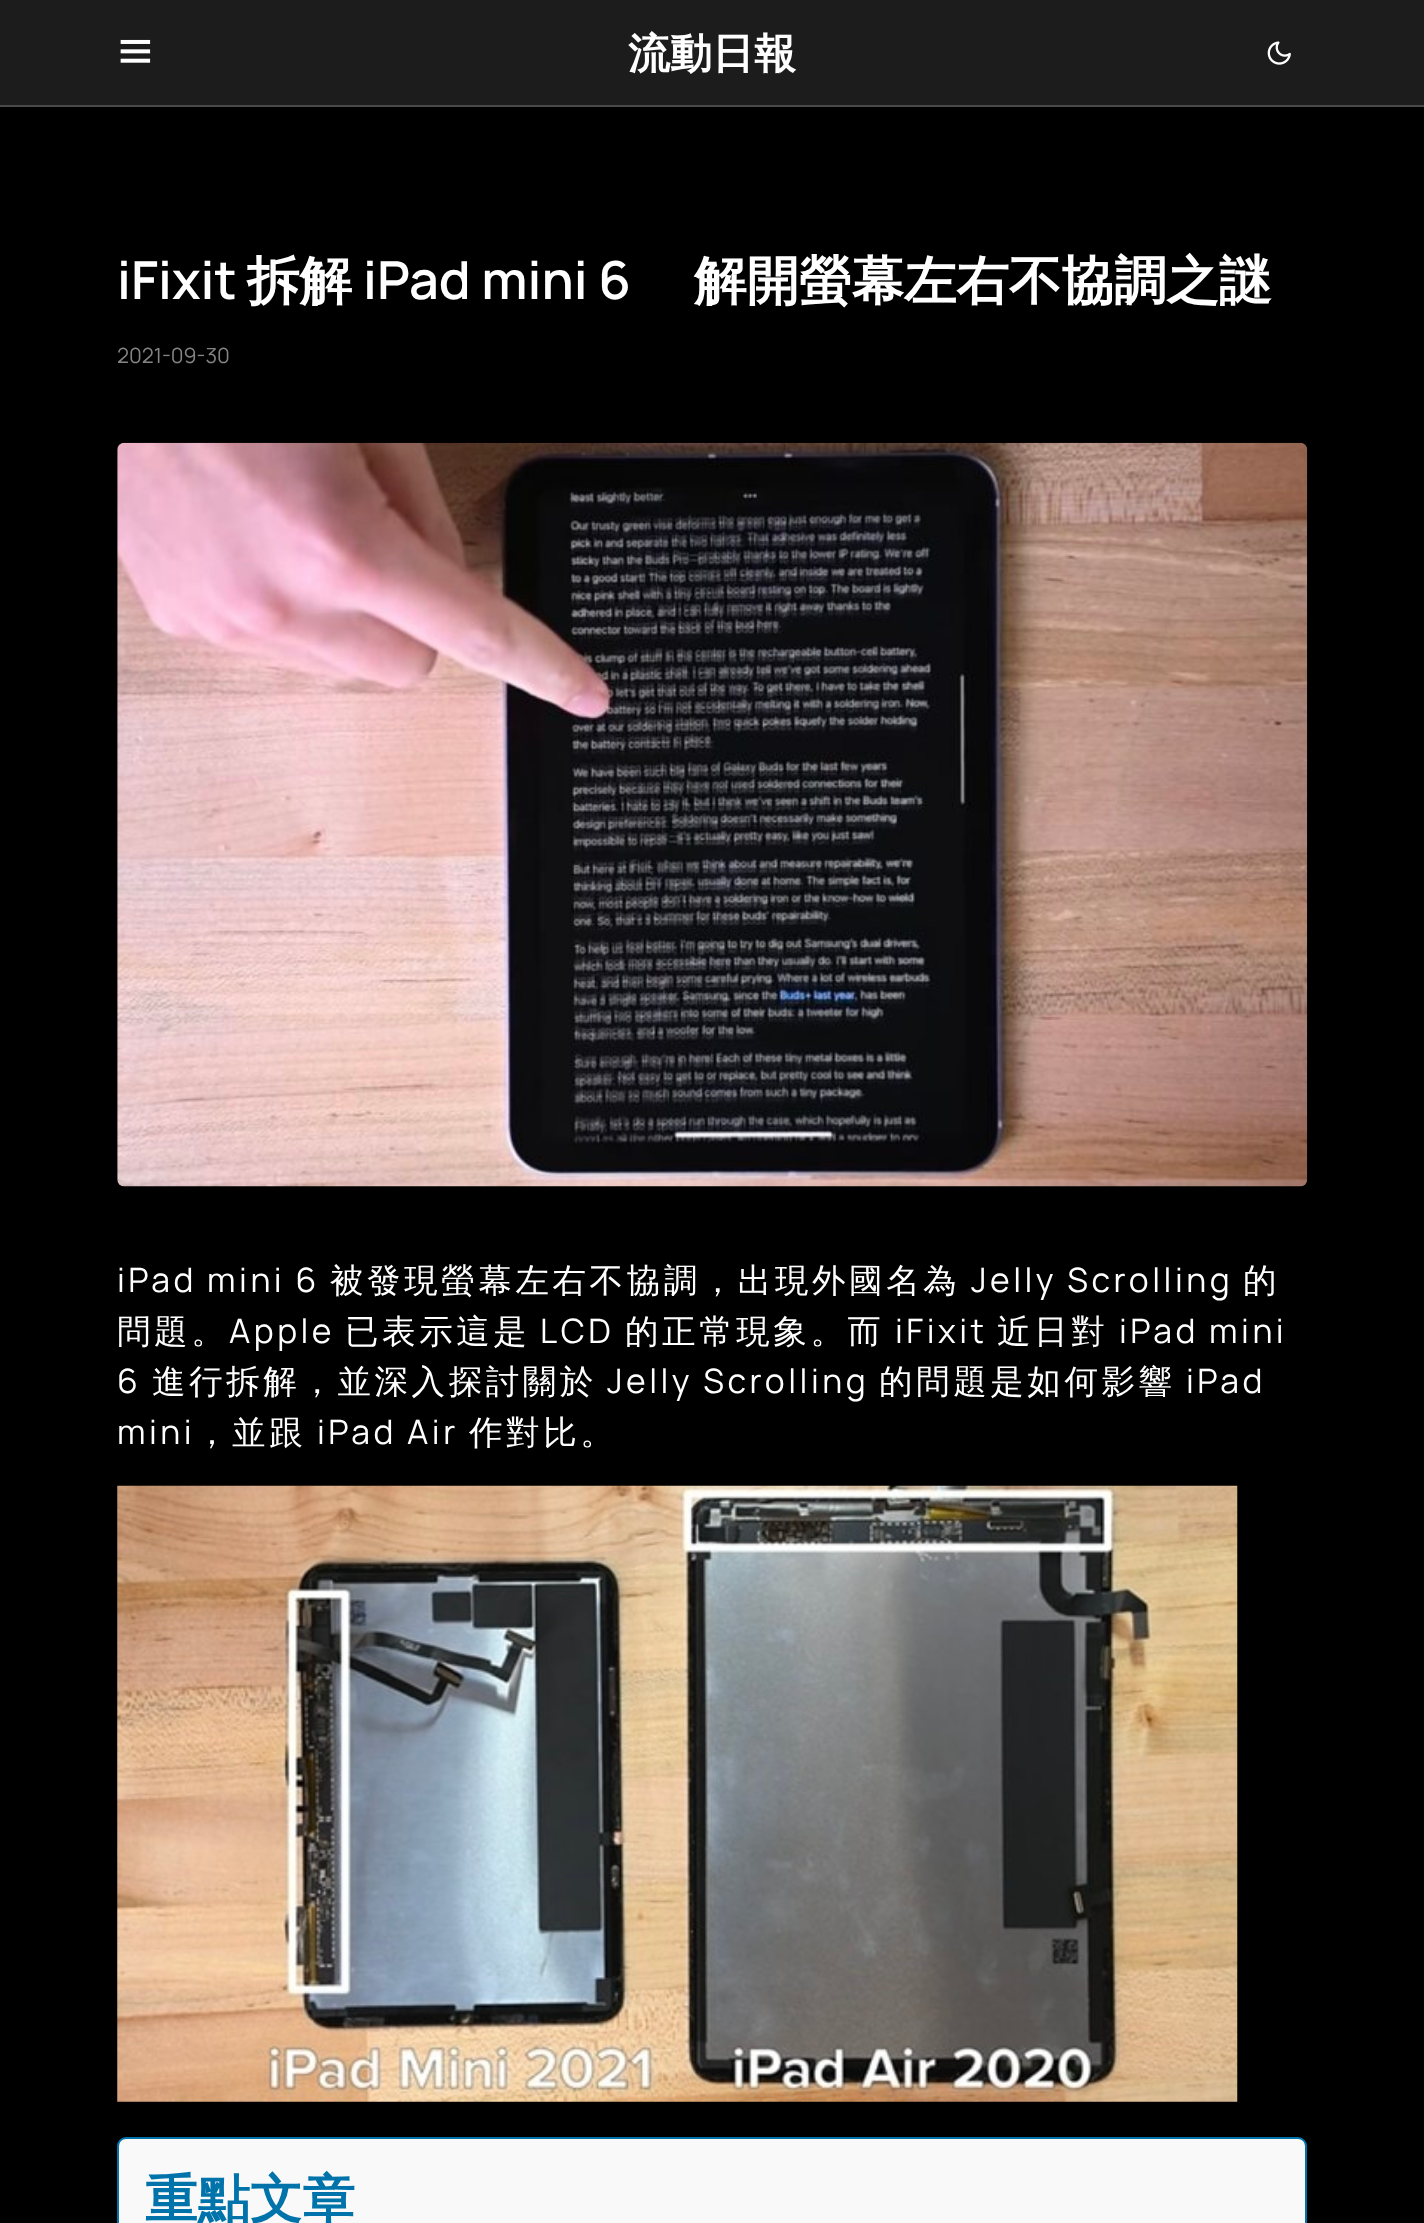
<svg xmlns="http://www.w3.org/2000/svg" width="1424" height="2223">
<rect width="100%" height="100%" fill="#000"/>
<rect width="1424" height="105" fill="#1c1c1c"/>
<rect y="105" width="1424" height="2" fill="#494949"/>
<image x="120" y="39" width="31" height="24" href="media/1.png"/>
<text x="628" y="68" style="font-family:WenQuanYi Zen Hei;font-size:42px;font-weight:bold;fill:#fff">流動日報</text>
<image x="1267" y="41" width="24" height="24" href="media/2.png"/>
<text x="117" y="299" style="font-family:Manrope;font-size:52.5px;font-weight:600;fill:#fff">iFixit</text>
<text x="247" y="299" style="font-family:WenQuanYi Zen Hei;font-size:52.5px;font-weight:bold;fill:#fff">拆解</text>
<text x="363" y="299" style="font-family:Manrope;font-size:52.5px;font-weight:600;fill:#fff">iPad mini 6</text>
<text x="694" y="299" style="font-family:WenQuanYi Zen Hei;font-size:52.5px;font-weight:bold;fill:#fff">解開螢幕左右不協調之謎</text>
<text x="117" y="363" style="font-family:Manrope;font-size:21px;fill:#858585">2021-09-30</text>
<image x="117" y="442" width="1191" height="745" href="media/3.png"/>
<text x="117" y="1292" style="font-family:Manrope;font-size:33.6px;letter-spacing:3.5px;fill:#fff">iPad mini 6</text>
<text x="330" y="1292" style="font-family:WenQuanYi Zen Hei;font-size:33.6px;font-weight:500;letter-spacing:3.5px;fill:#fff">被發現螢幕左右不協調，出現外國名為</text>
<text x="971" y="1292" style="font-family:Manrope;font-size:33.6px;letter-spacing:3.5px;fill:#fff">Jelly Scrolling</text>
<text x="1243" y="1292" style="font-family:WenQuanYi Zen Hei;font-size:33.6px;font-weight:500;letter-spacing:3.5px;fill:#fff">的</text>
<text x="117" y="1343" style="font-family:WenQuanYi Zen Hei;font-size:33.6px;font-weight:500;letter-spacing:3.5px;fill:#fff">問題。</text>
<text x="229" y="1343" style="font-family:Manrope;font-size:33.6px;letter-spacing:3.5px;fill:#fff">Apple</text>
<text x="345" y="1343" style="font-family:WenQuanYi Zen Hei;font-size:33.6px;font-weight:500;letter-spacing:3.5px;fill:#fff">已表示這是</text>
<text x="540" y="1343" style="font-family:Manrope;font-size:33.6px;letter-spacing:3.5px;fill:#fff">LCD</text>
<text x="625" y="1343" style="font-family:WenQuanYi Zen Hei;font-size:33.6px;font-weight:500;letter-spacing:3.5px;fill:#fff">的正常現象。而</text>
<text x="895" y="1343" style="font-family:Manrope;font-size:33.6px;letter-spacing:3.5px;fill:#fff">iFixit</text>
<text x="997" y="1343" style="font-family:WenQuanYi Zen Hei;font-size:33.6px;font-weight:500;letter-spacing:3.5px;fill:#fff">近日對</text>
<text x="1119" y="1343" style="font-family:Manrope;font-size:33.6px;letter-spacing:3.5px;fill:#fff">iPad mini</text>
<text x="117" y="1393" style="font-family:Manrope;font-size:33.6px;letter-spacing:3.5px;fill:#fff">6</text>
<text x="152" y="1393" style="font-family:WenQuanYi Zen Hei;font-size:33.6px;font-weight:500;letter-spacing:3.5px;fill:#fff">進行拆解，並深入探討關於</text>
<text x="607" y="1393" style="font-family:Manrope;font-size:33.6px;letter-spacing:3.5px;fill:#fff">Jelly Scrolling</text>
<text x="879" y="1393" style="font-family:WenQuanYi Zen Hei;font-size:33.6px;font-weight:500;letter-spacing:3.5px;fill:#fff">的問題是如何影響</text>
<text x="1186" y="1393" style="font-family:Manrope;font-size:33.6px;letter-spacing:3.5px;fill:#fff">iPad</text>
<text x="117" y="1444" style="font-family:Manrope;font-size:33.6px;letter-spacing:3.5px;fill:#fff">mini</text>
<text x="195" y="1444" style="font-family:WenQuanYi Zen Hei;font-size:33.6px;font-weight:500;letter-spacing:3.5px;fill:#fff">，並跟</text>
<text x="317" y="1444" style="font-family:Manrope;font-size:33.6px;letter-spacing:3.5px;fill:#fff">iPad Air</text>
<text x="469" y="1444" style="font-family:WenQuanYi Zen Hei;font-size:33.6px;font-weight:500;letter-spacing:3.5px;fill:#fff">作對比。</text>
<image x="117" y="1485" width="1121" height="617" href="media/4.png"/>
<rect x="118" y="2138" width="1188" height="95" rx="8" fill="#f9f9f9" stroke="#0073aa" stroke-width="2"/>
<text x="145" y="2217" style="font-family:WenQuanYi Zen Hei;font-size:52.5px;font-weight:bold;fill:#0073aa">重點文章</text>
</svg>
